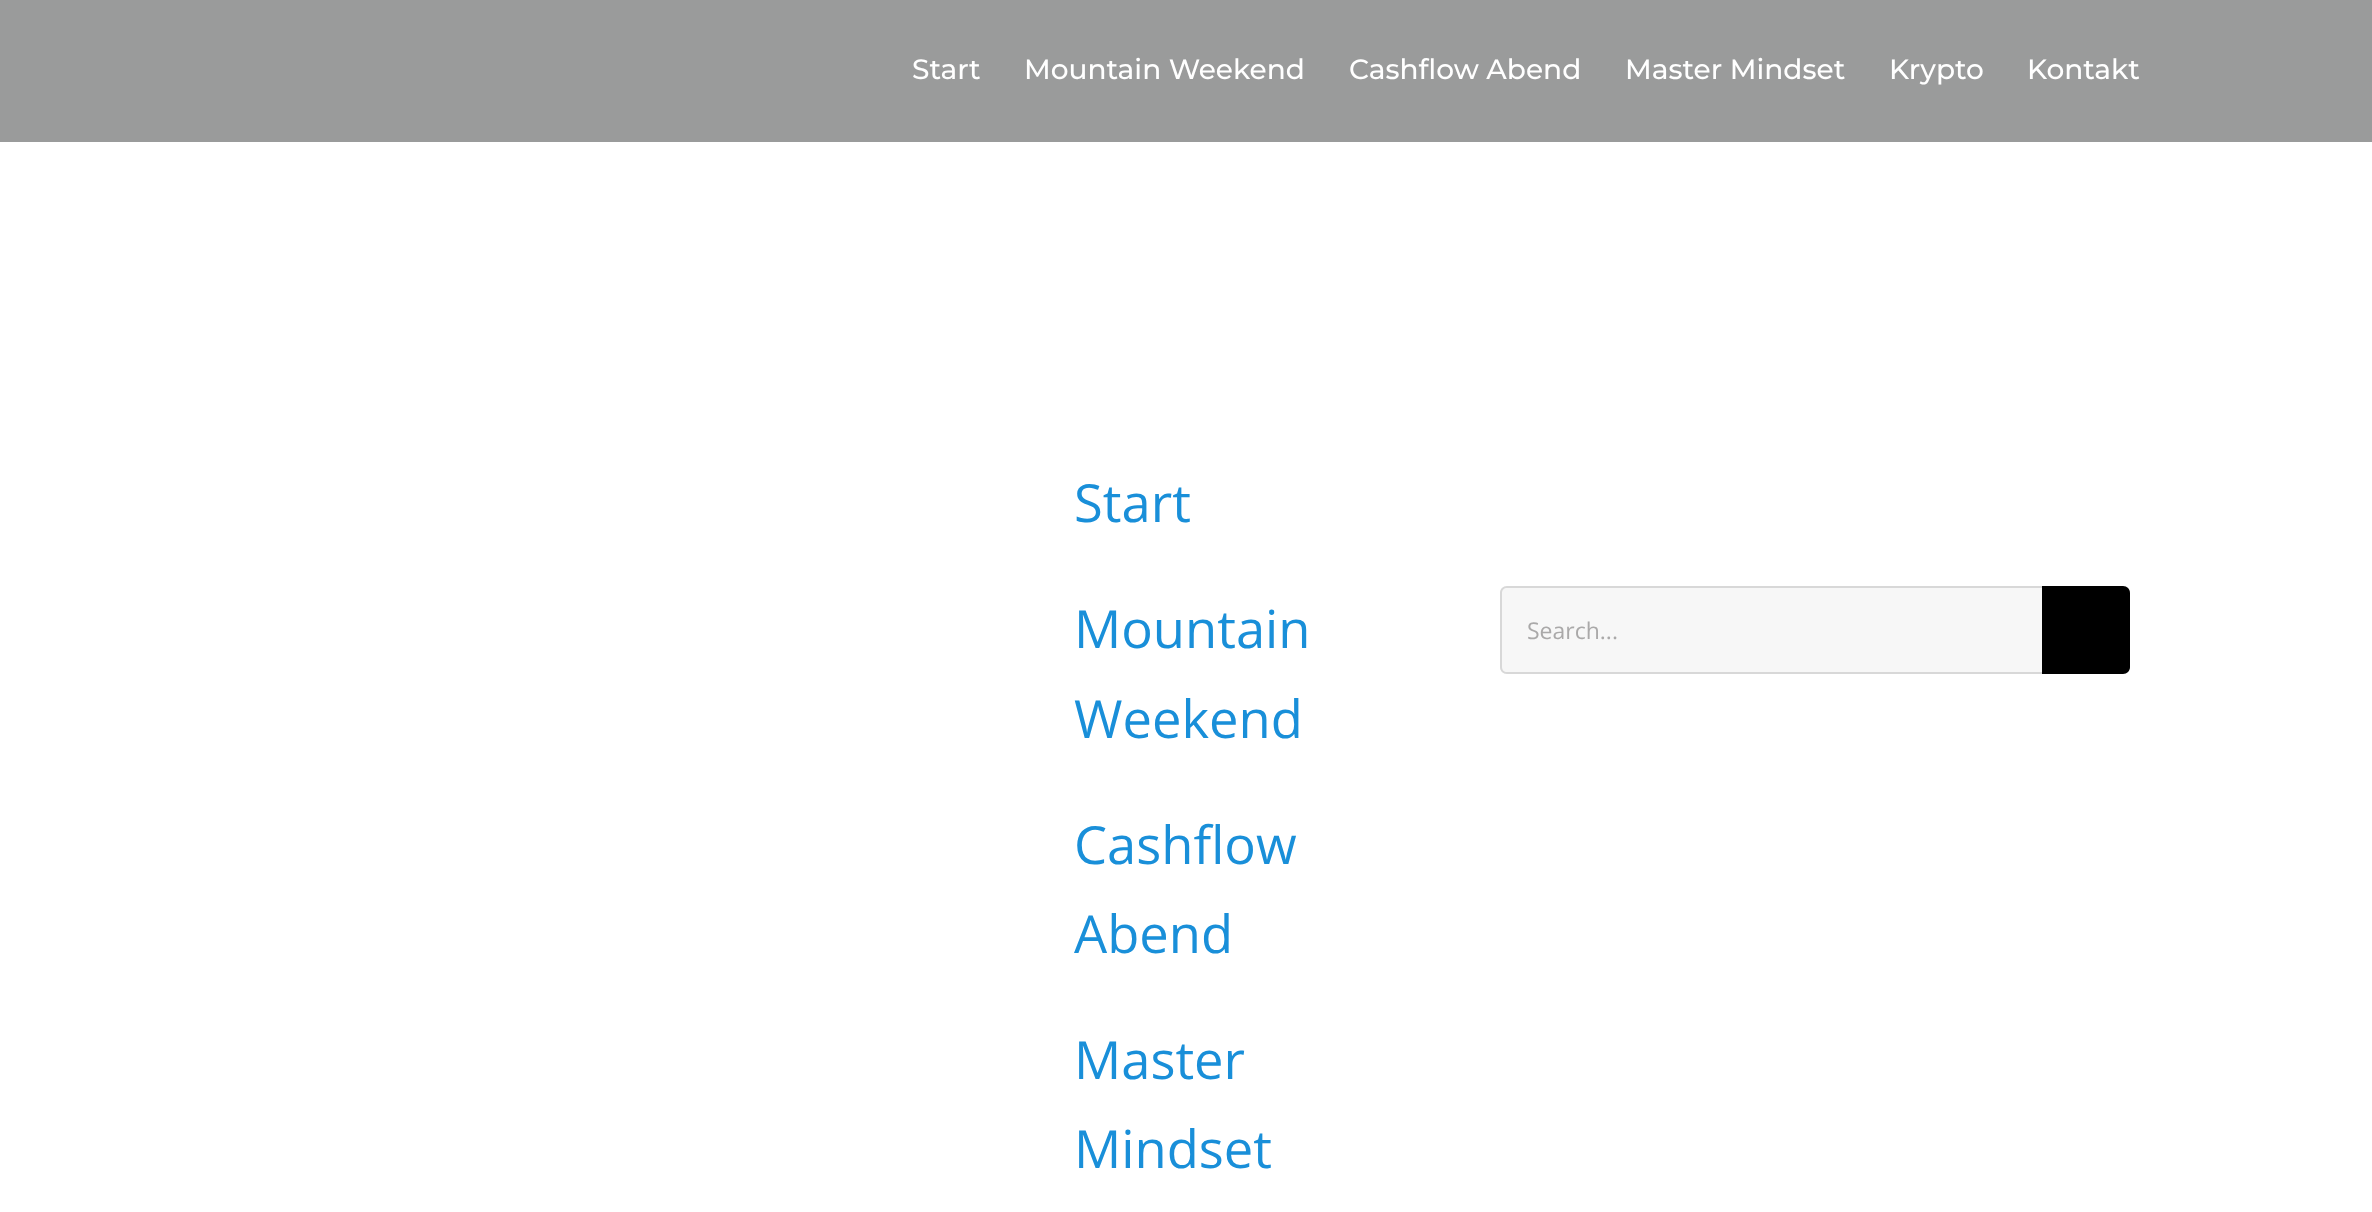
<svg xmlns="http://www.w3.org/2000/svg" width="2372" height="1212">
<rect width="100%" height="100%" fill="#fff"/>
<rect width="2372" height="142" fill="#9a9b9b"/>
<text x="912" y="79" style="font-family:Montserrat;font-size:28px;font-weight:100;fill:#fff">Start</text>
<text x="1024" y="79" style="font-family:Montserrat;font-size:28px;font-weight:100;fill:#fff">Mountain Weekend</text>
<text x="1349" y="79" style="font-family:Montserrat;font-size:28px;font-weight:100;fill:#fff">Cashflow Abend</text>
<text x="1625" y="79" style="font-family:Montserrat;font-size:28px;font-weight:100;fill:#fff">Master Mindset</text>
<text x="1889" y="79" style="font-family:Montserrat;font-size:28px;font-weight:100;fill:#fff">Krypto</text>
<text x="2027" y="79" style="font-family:Montserrat;font-size:28px;font-weight:100;fill:#fff">Kontakt</text>
<text x="1074" y="522" style="font-family:Open Sans;font-size:52.5px;fill:#198fd9">Start</text>
<text x="1074" y="648" style="font-family:Open Sans;font-size:52.5px;fill:#198fd9">Mountain</text>
<text x="1074" y="738" style="font-family:Open Sans;font-size:52.5px;fill:#198fd9">Weekend</text>
<text x="1074" y="864" style="font-family:Open Sans;font-size:52.5px;fill:#198fd9">Cashflow</text>
<text x="1074" y="953" style="font-family:Open Sans;font-size:52.5px;fill:#198fd9">Abend</text>
<text x="1074" y="1079" style="font-family:Open Sans;font-size:52.5px;fill:#198fd9">Master</text>
<text x="1074" y="1168" style="font-family:Open Sans;font-size:52.5px;fill:#198fd9">Mindset</text>
<path d="M1507 586h535v88h-535c-4 0-7-3-7-7v-74c0-4 3-7 7-7z" fill="#f7f7f7"/>
<path d="M1507 586c-4 0-7 3-7 7v74c0 4 3 7 7 7h535v-2h-535c-3 0-5-2-5-5v-74c0-3 2-5 5-5h535v-2z" fill="#d8d8d8"/>
<text x="1527" y="639" style="font-family:Open Sans;font-size:23px;fill:#aaa9a9">Search...</text>
<path d="M2042 586h81c4 0 7 3 7 7v74c0 4-3 7-7 7h-81z" fill="#000"/>
</svg>
